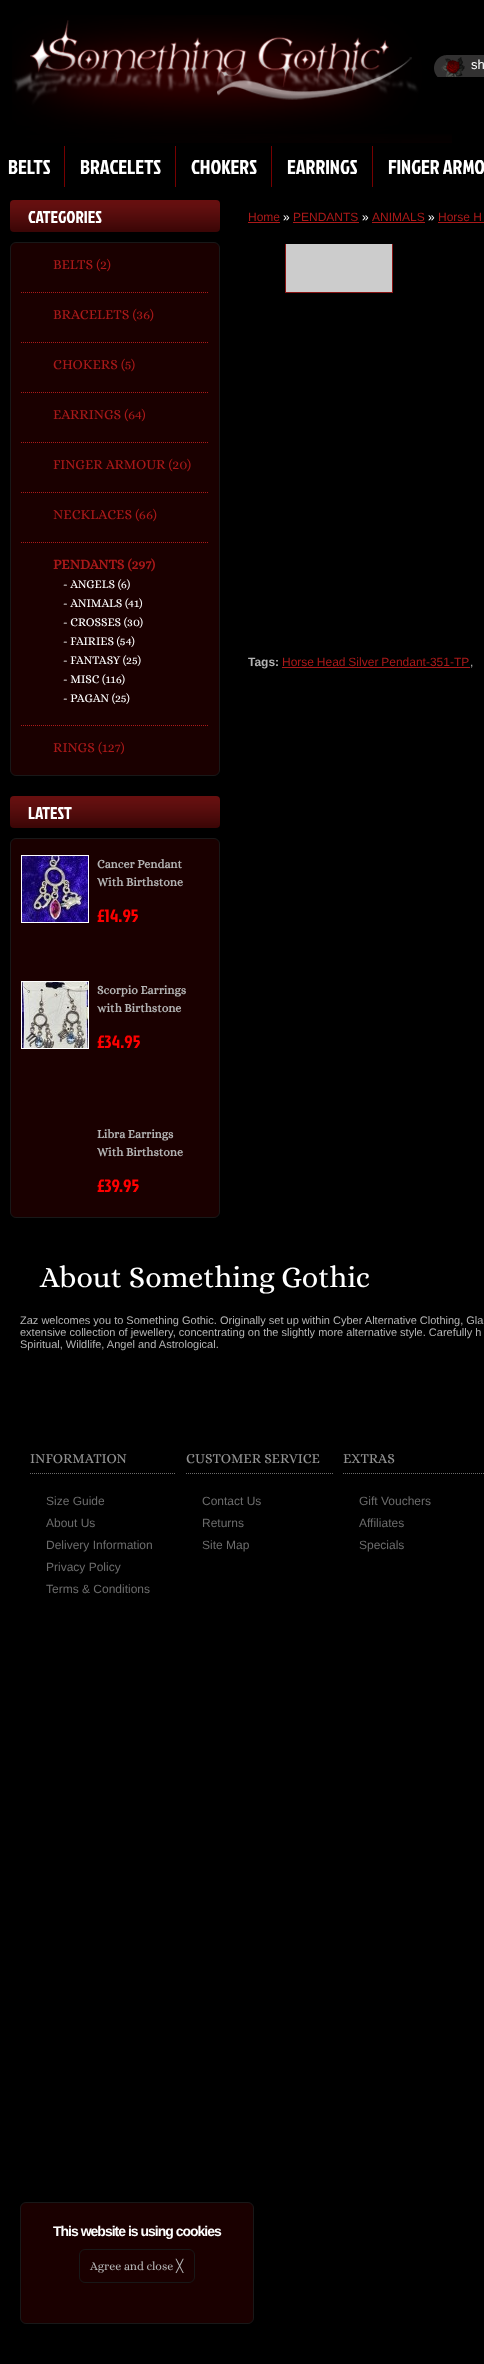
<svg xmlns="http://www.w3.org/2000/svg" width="484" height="2364">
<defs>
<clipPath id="clip1"><rect x="248" y="244" width="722" height="391"/></clipPath>
</defs>
<rect width="100%" height="100%" fill="#000"/>
<image x="12" y="15" width="440" height="128" href="media/1.png"/>
<image x="434" y="55" width="50" height="22" href="media/2.png"/>
<text x="471" y="69" style="font-family:Liberation Sans;font-size:13px;fill:#fff">sh</text>
<rect x="64" y="146" width="1" height="41" fill="#760000"/>
<text x="8" y="174" style="font-family:Jockey One;font-size:20px;fill:#fff">BELTS</text>
<rect x="175" y="146" width="1" height="41" fill="#760000"/>
<text x="80" y="174" style="font-family:Jockey One;font-size:20px;fill:#fff">BRACELETS</text>
<rect x="271" y="146" width="1" height="41" fill="#760000"/>
<text x="191" y="174" style="font-family:Jockey One;font-size:20px;fill:#fff">CHOKERS</text>
<rect x="372" y="146" width="1" height="41" fill="#760000"/>
<text x="287" y="174" style="font-family:Jockey One;font-size:20px;fill:#fff">EARRINGS</text>
<text x="388" y="174" style="font-family:Jockey One;font-size:20px;fill:#fff">FINGER ARMO</text>
<image x="10" y="200" width="210" height="32" href="media/3.png"/>
<text x="28" y="223" style="font-family:Jockey One;font-size:17px;fill:#fff">CATEGORIES</text>
<rect x="10.5" y="242.5" width="209" height="533" rx="5.5" fill="#1a0000" stroke="#181818"/>
<text x="53" y="269" style="font-family:Alice;font-size:14px;fill:#aa1919">BELTS (2)</text>
<path d="M21 292.5h188" fill="none" stroke="#aa1919" stroke-dasharray="1 1"/>
<text x="53" y="319" style="font-family:Alice;font-size:14px;fill:#aa1919">BRACELETS (36)</text>
<path d="M21 342.5h188" fill="none" stroke="#aa1919" stroke-dasharray="1 1"/>
<text x="53" y="369" style="font-family:Alice;font-size:14px;fill:#aa1919">CHOKERS (5)</text>
<path d="M21 392.5h188" fill="none" stroke="#aa1919" stroke-dasharray="1 1"/>
<text x="53" y="419" style="font-family:Alice;font-size:14px;fill:#aa1919">EARRINGS (64)</text>
<path d="M21 442.5h188" fill="none" stroke="#aa1919" stroke-dasharray="1 1"/>
<text x="53" y="469" style="font-family:Alice;font-size:14px;fill:#aa1919">FINGER ARMOUR (20)</text>
<path d="M21 492.5h188" fill="none" stroke="#aa1919" stroke-dasharray="1 1"/>
<text x="53" y="519" style="font-family:Alice;font-size:14px;fill:#aa1919">NECKLACES (66)</text>
<path d="M21 542.5h188" fill="none" stroke="#aa1919" stroke-dasharray="1 1"/>
<text x="53" y="569" style="font-family:Alice;font-size:14px;font-weight:bold;fill:#aa1919">PENDANTS (297)</text>
<text x="63" y="588" style="font-family:Alice;font-size:12px;fill:#fff">- ANGELS (6)</text>
<text x="63" y="607" style="font-family:Alice;font-size:12px;fill:#fff">- ANIMALS (41)</text>
<text x="63" y="626" style="font-family:Alice;font-size:12px;fill:#fff">- CROSSES (30)</text>
<text x="63" y="645" style="font-family:Alice;font-size:12px;fill:#fff">- FAIRIES (54)</text>
<text x="63" y="664" style="font-family:Alice;font-size:12px;fill:#fff">- FANTASY (25)</text>
<text x="63" y="683" style="font-family:Alice;font-size:12px;fill:#fff">- MISC (116)</text>
<text x="63" y="702" style="font-family:Alice;font-size:12px;fill:#fff">- PAGAN (25)</text>
<path d="M21 725.5h188" fill="none" stroke="#aa1919" stroke-dasharray="1 1"/>
<text x="53" y="752" style="font-family:Alice;font-size:14px;fill:#aa1919">RINGS (127)</text>
<image x="10" y="796" width="210" height="32" href="media/3.png"/>
<text x="28" y="819" style="font-family:Jockey One;font-size:17px;fill:#fff">LATEST</text>
<rect x="10.5" y="838.5" width="209" height="379" rx="5.5" fill="#1a0000" stroke="#181818"/>
<rect x="21.5" y="855.5" width="67" height="67" fill="none" stroke="#fff"/>
<image x="22" y="856" width="66" height="66" href="media/4.png"/>
<text x="97" y="868" style="font-family:Alice;font-size:12px;font-weight:bold;fill:#b4b4b4">Cancer Pendant</text>
<text x="97" y="886" style="font-family:Alice;font-size:12px;font-weight:bold;fill:#b4b4b4">With Birthstone</text>
<text x="97" y="922" style="font-family:Jockey One;font-size:18px;fill:#f00">£14.95</text>
<rect x="21.5" y="981.5" width="67" height="67" fill="none" stroke="#fff"/>
<image x="22" y="982" width="66" height="66" href="media/5.png"/>
<text x="97" y="994" style="font-family:Alice;font-size:12px;font-weight:bold;fill:#b4b4b4">Scorpio Earrings</text>
<text x="97" y="1012" style="font-family:Alice;font-size:12px;font-weight:bold;fill:#b4b4b4">with Birthstone</text>
<text x="97" y="1048" style="font-family:Jockey One;font-size:18px;fill:#f00">£34.95</text>
<text x="97" y="1138" style="font-family:Alice;font-size:12px;font-weight:bold;fill:#b4b4b4">Libra Earrings</text>
<text x="97" y="1156" style="font-family:Alice;font-size:12px;font-weight:bold;fill:#b4b4b4">With Birthstone</text>
<text x="97" y="1192" style="font-family:Jockey One;font-size:18px;fill:#f00">£39.95</text>
<text x="248" y="221" style="font-family:Liberation Sans;font-size:12px;fill:#aa1919">Home</text>
<rect x="248" y="222" width="32" height="1" fill="#aa1919"/>
<text x="283" y="221" style="font-family:Liberation Sans;font-size:12px;fill:#fff">»</text>
<text x="293" y="221" style="font-family:Liberation Sans;font-size:12px;fill:#aa1919">PENDANTS</text>
<rect x="293" y="222" width="66" height="1" fill="#aa1919"/>
<text x="362" y="221" style="font-family:Liberation Sans;font-size:12px;fill:#fff">»</text>
<text x="372" y="221" style="font-family:Liberation Sans;font-size:12px;fill:#aa1919">ANIMALS</text>
<rect x="372" y="222" width="53" height="1" fill="#aa1919"/>
<text x="428" y="221" style="font-family:Liberation Sans;font-size:12px;fill:#fff">»</text>
<text x="438" y="221" style="font-family:Liberation Sans;font-size:12px;fill:#aa1919">Horse H</text>
<rect x="438" y="222" width="46" height="1" fill="#aa1919"/>
<rect x="286" y="244" width="106" height="48" fill="#ccc"/>
<g clip-path="url(#clip1)">
<rect x="285.5" y="232.5" width="107" height="60" fill="none" stroke="#881414"/>
</g>
<text x="248" y="666" style="font-family:Liberation Sans;font-size:12px;font-weight:bold;fill:#b4b4b4">Tags:</text>
<text x="282" y="666" word-spacing="-0.5" style="font-family:Liberation Sans;font-size:12px;fill:#aa1919">Horse Head Silver Pendant-351-TP</text>
<rect x="282" y="667" width="188" height="1" fill="#aa1919"/>
<text x="470" y="666" style="font-family:Liberation Sans;font-size:12px;fill:#b4b4b4">,</text>
<text x="40" y="1287" style="font-family:Alice;font-size:30px;fill:#fff">About Something Gothic</text>
<text x="20" y="1324" style="font-family:Liberation Sans;font-size:11px;fill:#b4b4b4">Zaz welcomes you to Something Gothic. Originally set up within Cyber Alternative Clothing, Gla</text>
<text x="20" y="1336" style="font-family:Liberation Sans;font-size:11px;fill:#b4b4b4">extensive collection of jewellery, concentrating on the slightly more alternative style. Carefully h</text>
<text x="20" y="1348" style="font-family:Liberation Sans;font-size:11px;fill:#b4b4b4">Spiritual, Wildlife, Angel and Astrological.</text>
<path d="M30 1473.5h146" fill="none" stroke="#6c6c6c" stroke-dasharray="1 1"/>
<text x="30" y="1463" style="font-family:Alice;font-size:14px;fill:#929292">INFORMATION</text>
<text x="46" y="1505" style="font-family:Liberation Sans;font-size:12px;fill:#6c6c6c">Size Guide</text>
<text x="46" y="1527" style="font-family:Liberation Sans;font-size:12px;fill:#6c6c6c">About Us</text>
<text x="46" y="1549" style="font-family:Liberation Sans;font-size:12px;fill:#6c6c6c">Delivery Information</text>
<text x="46" y="1571" style="font-family:Liberation Sans;font-size:12px;fill:#6c6c6c">Privacy Policy</text>
<text x="46" y="1593" style="font-family:Liberation Sans;font-size:12px;fill:#6c6c6c">Terms &amp; Conditions</text>
<path d="M186 1473.5h147" fill="none" stroke="#6c6c6c" stroke-dasharray="1 1"/>
<text x="186" y="1463" style="font-family:Alice;font-size:14px;fill:#929292">CUSTOMER SERVICE</text>
<text x="202" y="1505" style="font-family:Liberation Sans;font-size:12px;fill:#6c6c6c">Contact Us</text>
<text x="202" y="1527" style="font-family:Liberation Sans;font-size:12px;fill:#6c6c6c">Returns</text>
<text x="202" y="1549" style="font-family:Liberation Sans;font-size:12px;fill:#6c6c6c">Site Map</text>
<path d="M343 1473.5h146" fill="none" stroke="#6c6c6c" stroke-dasharray="1 1"/>
<text x="343" y="1463" style="font-family:Alice;font-size:14px;fill:#929292">EXTRAS</text>
<text x="359" y="1505" style="font-family:Liberation Sans;font-size:12px;fill:#6c6c6c">Gift Vouchers</text>
<text x="359" y="1527" style="font-family:Liberation Sans;font-size:12px;fill:#6c6c6c">Affiliates</text>
<text x="359" y="1549" style="font-family:Liberation Sans;font-size:12px;fill:#6c6c6c">Specials</text>
<rect x="20.5" y="2202.5" width="233" height="121" rx="5.5" fill="#1a0000" stroke="#181818"/>
<text x="53" y="2236" style="font-family:Liberation Sans;font-size:14px;font-weight:bold;letter-spacing:-1px;fill:#fff">This website is using cookies</text>
<rect x="79.5" y="2249.5" width="115" height="33" rx="5.5" fill="none" stroke="#181818"/>
<text x="90" y="2270" style="font-family:Alice;font-size:12px;fill:#b4b4b4">Agree and close</text>
<text x="176" y="2270" style="font-family:DejaVu Sans;font-size:12px;fill:#b4b4b4">╳</text>
</svg>
